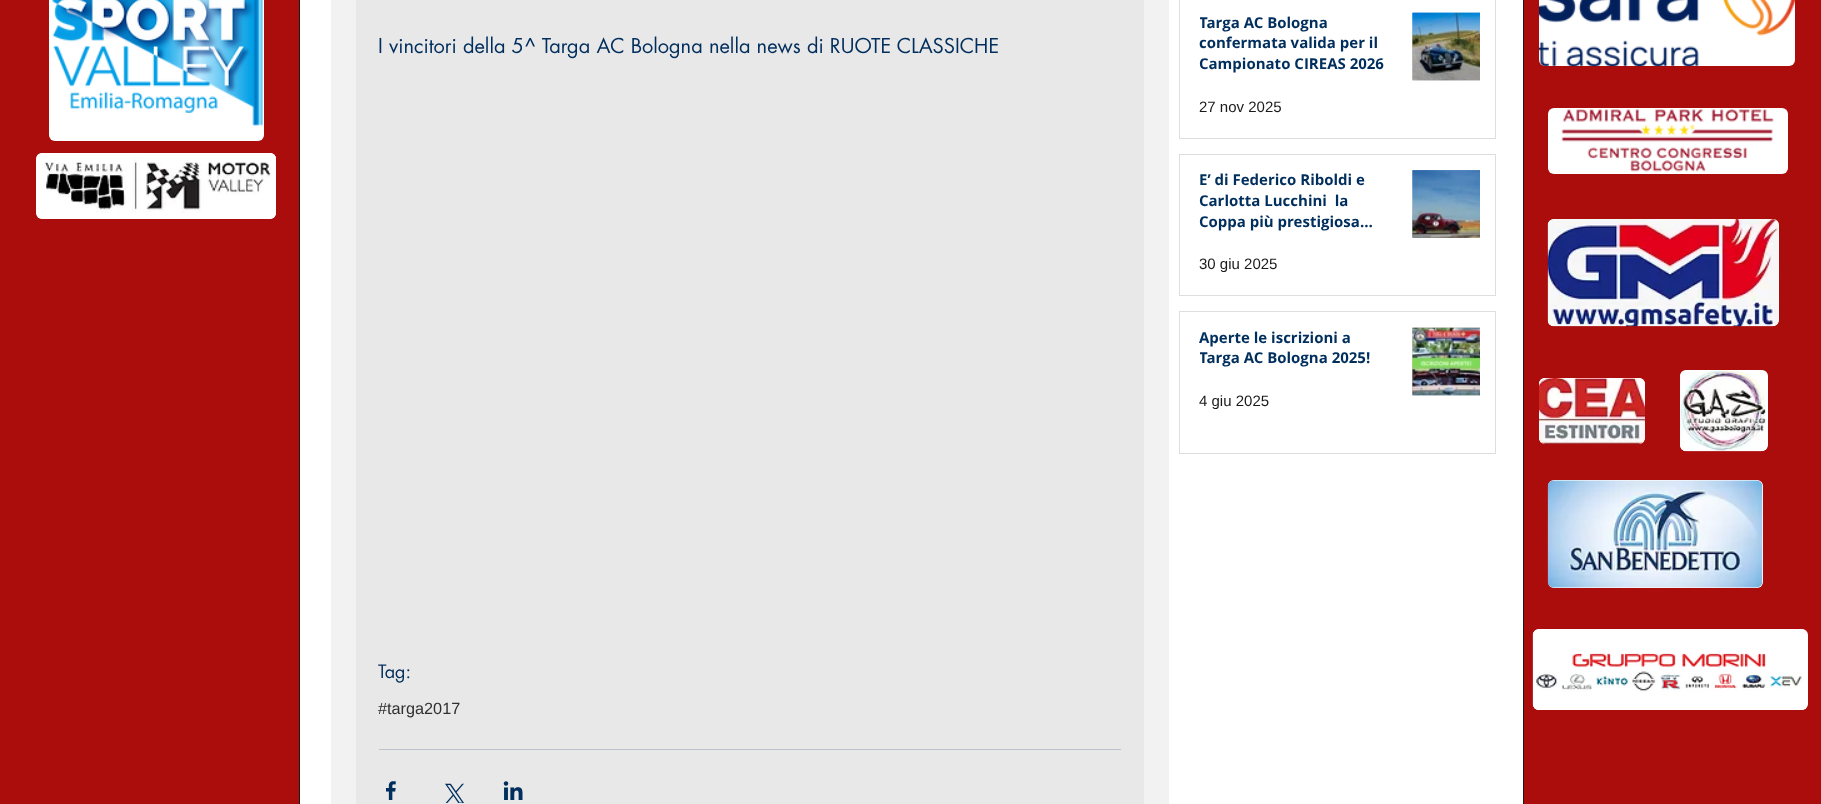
<svg xmlns="http://www.w3.org/2000/svg" width="1821" height="804">
<defs>
<clipPath id="clip1"><rect x="1200" y="13" width="193" height="62"/></clipPath>
<clipPath id="clip2"><rect x="1200" y="328" width="193" height="42"/></clipPath>
</defs>
<rect width="100%" height="100%" fill="#ab0d0d"/>
<rect x="49" y="-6" width="215" height="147" rx="6" fill="#fff"/>
<image x="52" y="0" width="211" height="126" href="media/1.png"/>
<rect x="1539" y="-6" width="256" height="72" rx="6" fill="#fff"/>
<image x="1539" y="0" width="256" height="67" href="media/2.png"/>
<rect x="1548" y="108" width="240" height="66" rx="6" fill="#fff"/>
<image x="1561" y="109" width="213" height="63" href="media/3.png"/>
<rect x="36" y="153" width="240" height="66" rx="6" fill="#fff"/>
<image x="36" y="153" width="240" height="66" href="media/4.png"/>
<rect x="1548" y="219" width="231" height="107" rx="6" fill="#fff"/>
<image x="1547" y="219" width="232" height="108" href="media/5.png"/>
<rect x="1539" y="378" width="106" height="66" rx="6" fill="#fff"/>
<image x="1539" y="378" width="106" height="66" href="media/6.png"/>
<rect x="1680" y="370" width="88" height="81" rx="6" fill="#fff"/>
<image x="1680" y="370" width="87" height="82" href="media/7.png"/>
<rect x="1548" y="480" width="215" height="108" rx="6" fill="#fff"/>
<image x="1547" y="480" width="216" height="108" href="media/8.png"/>
<rect x="1533" y="629" width="275" height="81" rx="6" fill="#fff"/>
<image x="1532" y="629" width="274" height="81" href="media/9.png"/>
<rect x="299.5" y="-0.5" width="1224" height="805" fill="#fff" stroke="#1a1a1a"/>
<rect x="331" width="838" height="804" fill="#f3f2f2"/>
<rect x="356" width="788" height="804" fill="#e9e8e8"/>
<text x="378" y="53" style="font-family:futura;font-size:20px;fill:#002e5d">I vincitori della 5^ Targa AC Bologna nella news di RUOTE CLASSICHE</text>
<text x="378" y="678" style="font-family:futura;font-size:18px;fill:#002e5d">Tag:</text>
<text x="378" y="714" style="font-family:Liberation Sans;font-size:16.25px;fill:#2f2f2f">#targa2017</text>
<rect x="379" y="749" width="742" height="1" fill="#bac3cc"/>
<image x="386" y="781" width="10" height="19" href="media/10.png"/>
<image x="445" y="783" width="19" height="20" href="media/11.png"/>
<image x="503" y="781" width="20" height="19" href="media/12.png"/>
<rect x="1179.5" y="-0.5" width="316" height="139" fill="none" stroke="#dfdede"/>
<g clip-path="url(#clip1)">
<text x="1199" y="28" style="font-family:Open Sans;font-size:15px;font-weight:bold;fill:#002e5d">Targa AC Bologna</text>
</g>
<text x="1199" y="48" style="font-family:Open Sans;font-size:15px;font-weight:bold;fill:#002e5d">confermata valida per il</text>
<text x="1199" y="69" style="font-family:Open Sans;font-size:15px;font-weight:bold;fill:#002e5d">Campionato CIREAS 2026</text>
<text x="1199" y="112" style="font-family:Liberation Sans;font-size:15px;fill:#1a1a1a">27 nov 2025</text>
<image x="1412" y="12" width="68" height="69" href="media/13.png"/>
<image x="1412" y="12" width="68" height="69" href="media/14.png"/>
<rect x="1179.5" y="154.5" width="316" height="141" fill="none" stroke="#dfdede"/>
<text x="1199" y="185" style="font-family:Open Sans;font-size:15px;font-weight:bold;fill:#002e5d">E’ di Federico Riboldi e</text>
<text x="1199" y="206" style="font-family:Open Sans;font-size:15px;font-weight:bold;fill:#002e5d" xml:space="preserve">Carlotta Lucchini  la</text>
<text x="1199" y="227" style="font-family:Open Sans;font-size:15px;font-weight:bold;fill:#002e5d">Coppa più prestigiosa…</text>
<text x="1199" y="269" style="font-family:Liberation Sans;font-size:15px;fill:#1a1a1a">30 giu 2025</text>
<image x="1412" y="170" width="68" height="68" href="media/15.png"/>
<image x="1412" y="170" width="68" height="68" href="media/16.png"/>
<rect x="1179.5" y="311.5" width="316" height="142" fill="none" stroke="#dfdede"/>
<text x="1199" y="343" style="font-family:Open Sans;font-size:15px;font-weight:bold;fill:#002e5d">Aperte le iscrizioni a</text>
<g clip-path="url(#clip2)">
<text x="1199" y="363" style="font-family:Open Sans;font-size:15px;font-weight:bold;fill:#002e5d">Targa AC Bologna 2025!</text>
</g>
<text x="1199" y="406" style="font-family:Liberation Sans;font-size:15px;fill:#1a1a1a">4 giu 2025</text>
<image x="1412" y="327" width="68" height="69" href="media/17.png"/>
<image x="1412" y="327" width="68" height="69" href="media/18.png"/>
</svg>
